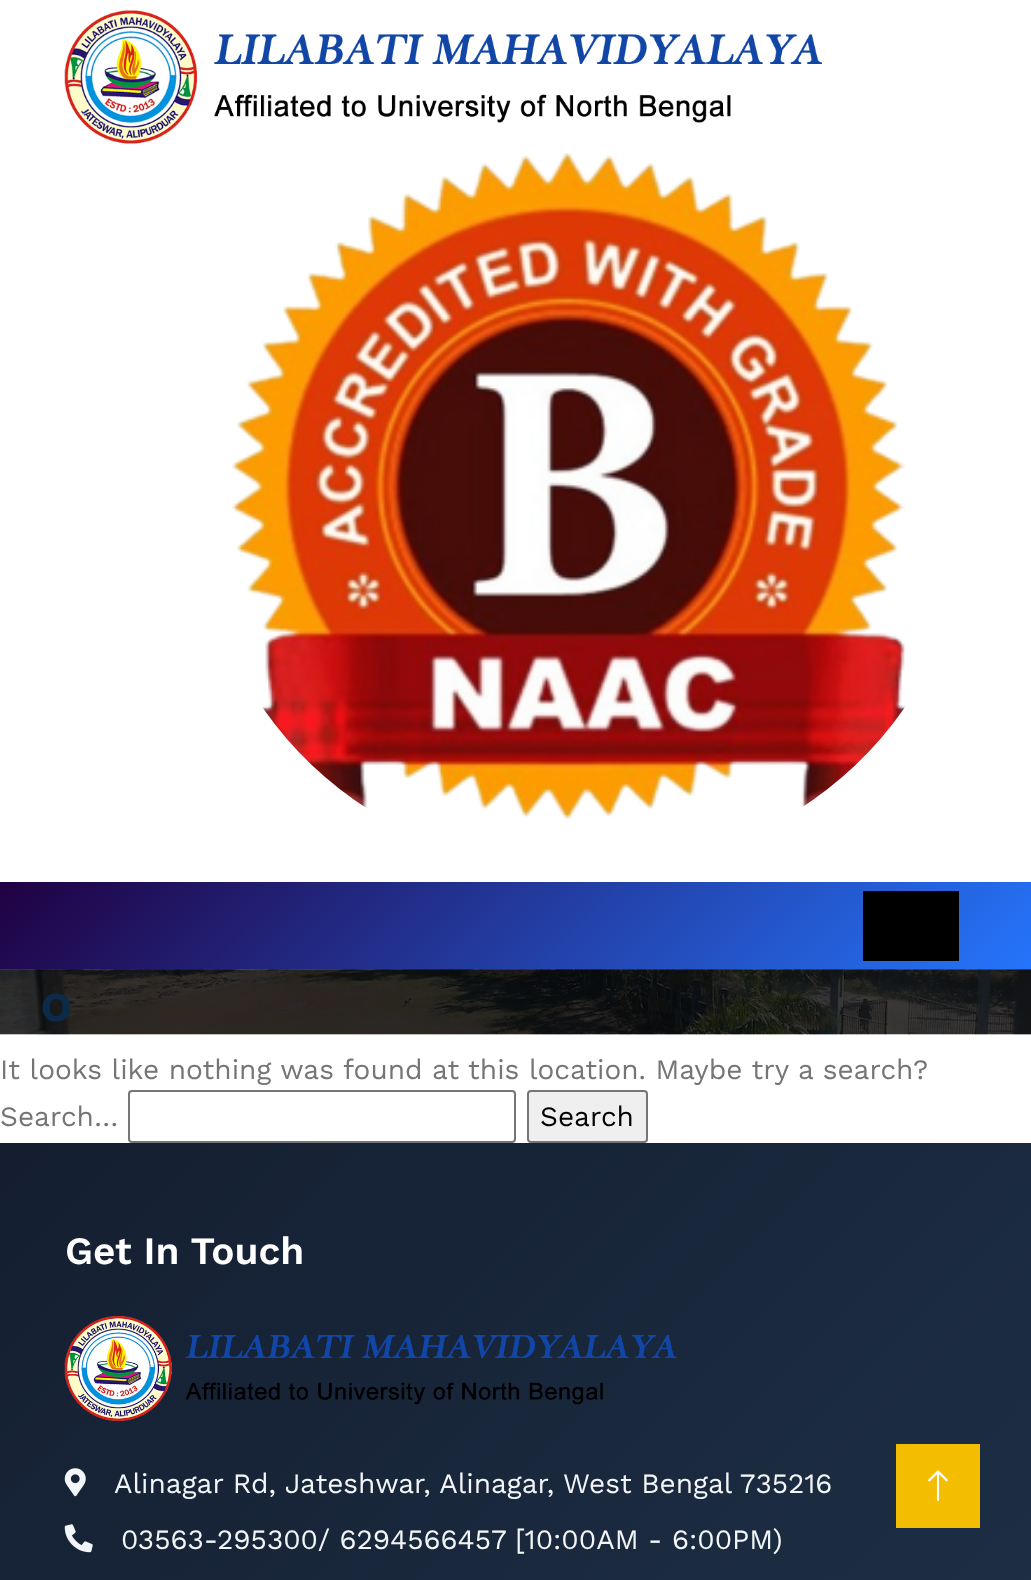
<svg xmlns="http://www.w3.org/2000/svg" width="1031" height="1580">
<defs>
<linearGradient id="g1" gradientUnits="userSpaceOnUse" x1="236" y1="646" x2="796" y2="1206"><stop offset="0" stop-color="#200142"/><stop offset="1" stop-color="#2575fc"/></linearGradient>
<linearGradient id="g2" gradientUnits="userSpaceOnUse" x1="-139" y1="1282" x2="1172" y2="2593"><stop offset="0" stop-color="#141e30"/><stop offset="1" stop-color="#243b55"/></linearGradient>
</defs>
<rect width="100%" height="100%" fill="#fff"/>
<image x="64" y="10" width="759" height="134" href="media/1.png"/>
<image x="232" y="153" width="674" height="666" href="media/2.png"/>
<rect y="882" width="1031" height="88" fill="url(#g1)"/>
<rect x="863" y="891" width="96" height="70" fill="#000"/>
<image x="0" y="969" width="1031" height="66" href="media/3.png"/>
<text x="40" y="1021" style="font-family:Work Sans;font-size:54px;font-weight:600;fill:#0c2b4b">o</text>
<text x="0" y="1079" style="font-family:Work Sans;font-size:28px;fill:#757575">It looks like nothing was found at this location. Maybe try a search?</text>
<text x="0" y="1126" style="font-family:Work Sans;font-size:28px;fill:#757575">Search…</text>
<rect x="129" y="1091" width="386" height="51" rx="3" fill="none" stroke="#767676" stroke-width="2"/>
<rect x="528" y="1091" width="119" height="51" rx="3" fill="#efefef" stroke="#767676" stroke-width="2"/>
<text x="540" y="1126" style="font-family:Work Sans;font-size:28px;fill:#000">Search</text>
<rect y="1143" width="1031" height="437" fill="url(#g2)"/>
<text x="65" y="1264" style="font-family:Work Sans;font-size:38.75px;font-weight:600;fill:#fff">Get In Touch</text>
<image x="64" y="1316" width="613" height="105" href="media/4.png"/>
<image x="64" y="1468" width="22" height="29" href="media/5.png"/>
<text x="114" y="1493" style="font-family:Work Sans;font-size:28px;fill:#f3f6f8">Alinagar Rd, Jateshwar, Alinagar, West Bengal 735216</text>
<image x="64" y="1524" width="29" height="29" href="media/6.png"/>
<text x="121" y="1549" style="font-family:Work Sans;font-size:28px;fill:#f3f6f8">03563-295300/ 6294566457 [10:00AM - 6:00PM)</text>
<rect x="896" y="1444" width="84" height="84" fill="#f3bd00"/>
<image x="928" y="1470" width="20" height="31" href="media/7.png"/>
</svg>
